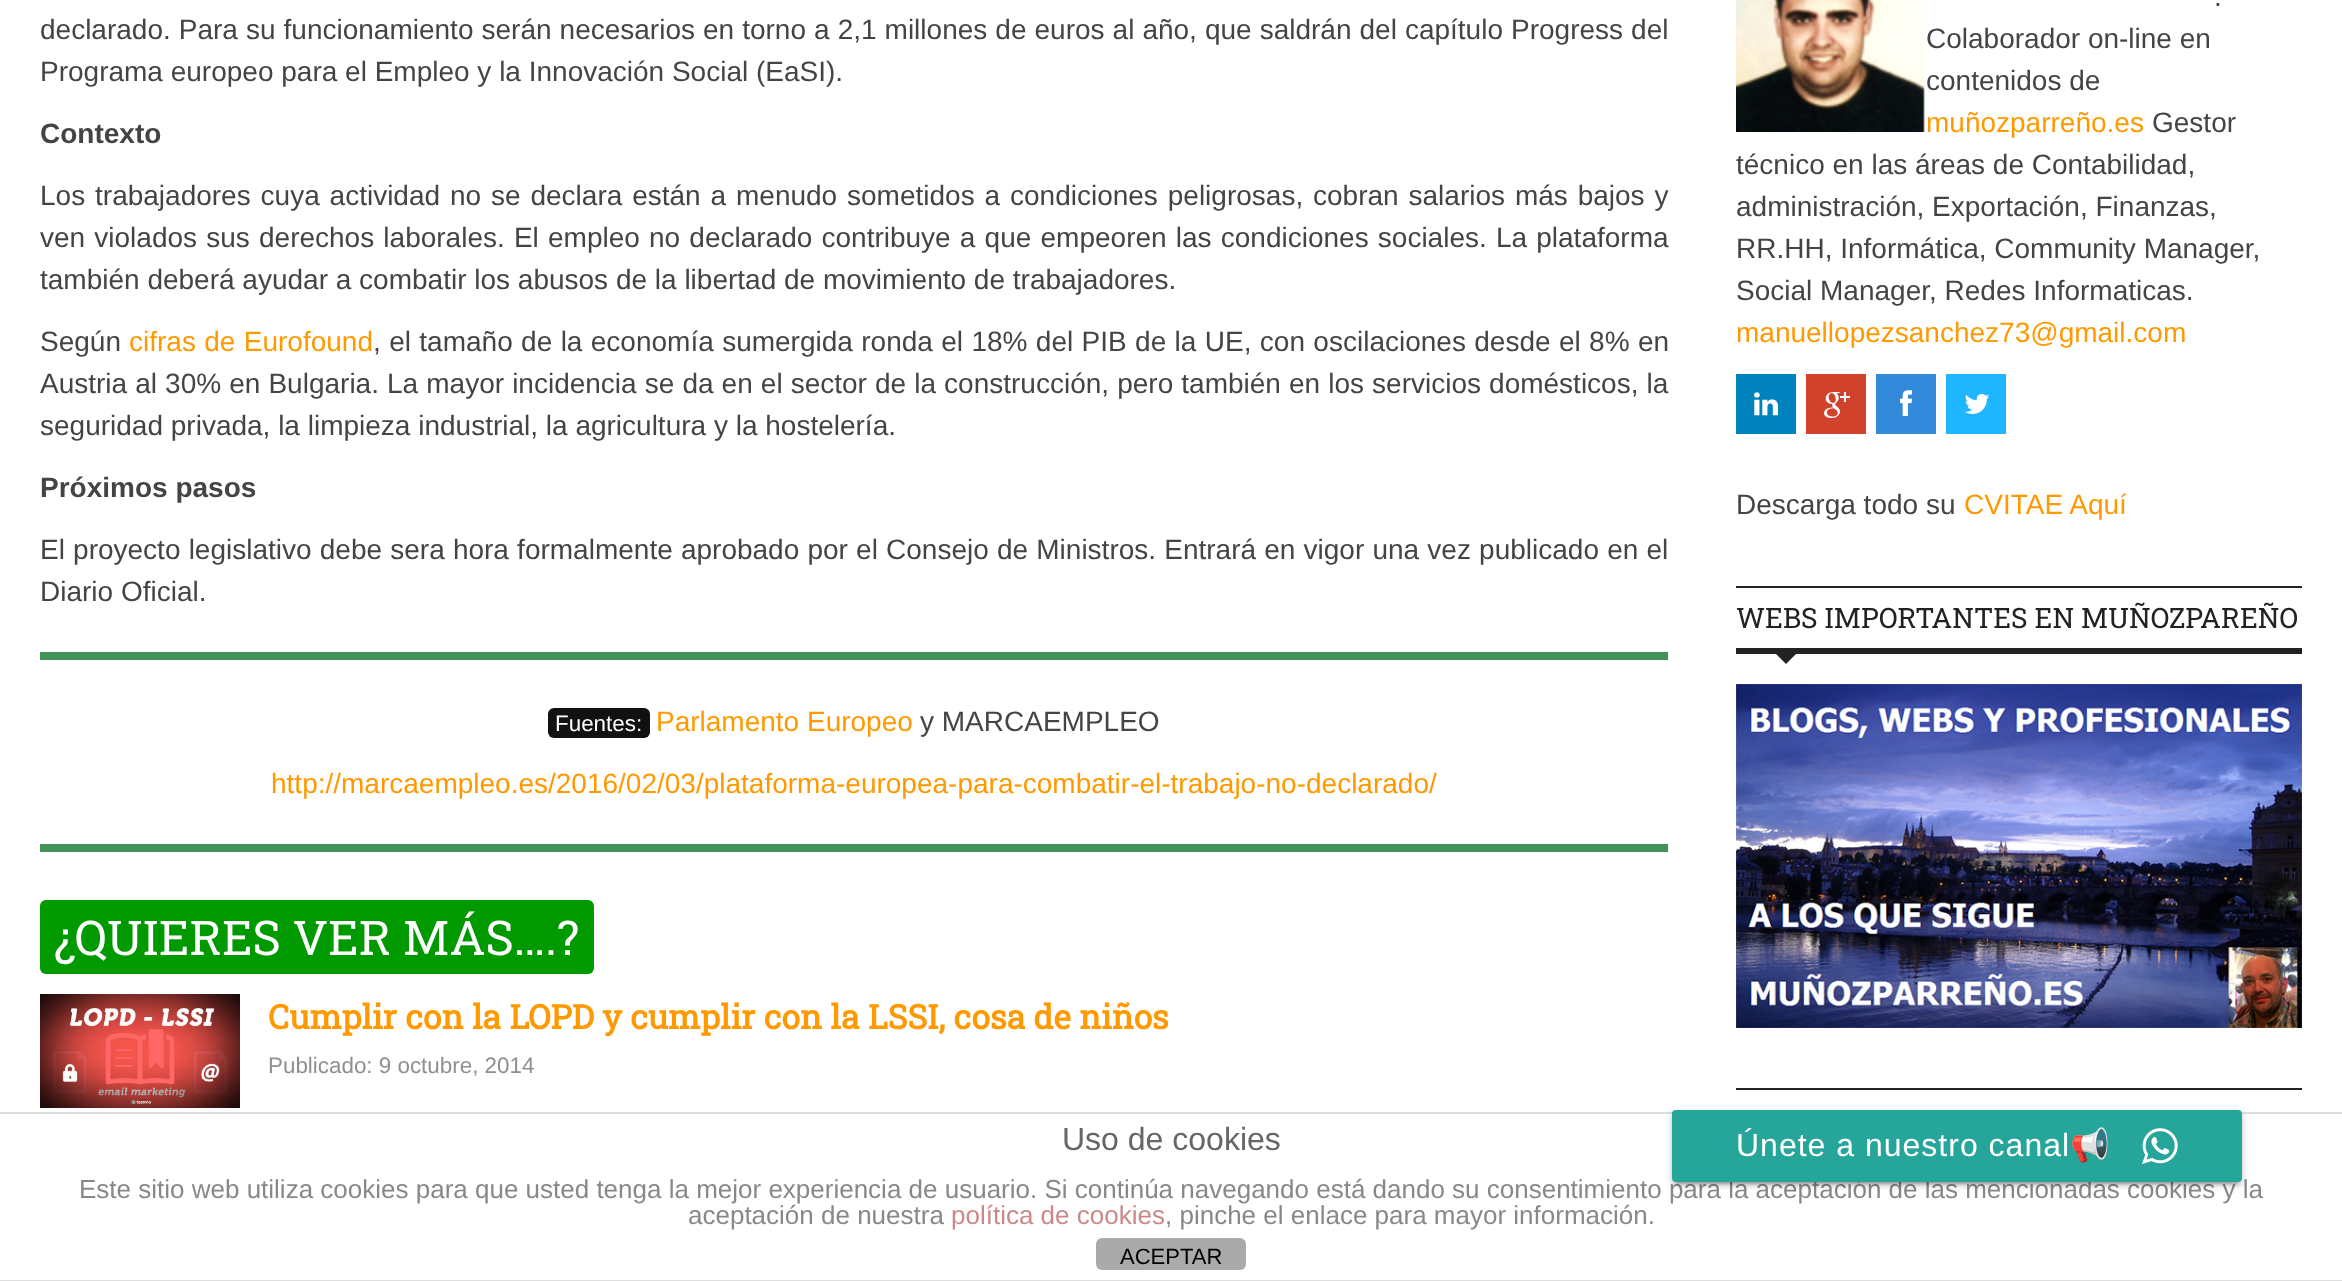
<svg xmlns="http://www.w3.org/2000/svg" width="2342" height="1281">
<rect width="100%" height="100%" fill="#fff"/>
<text x="40" y="39" word-spacing="0.25" style="font-family:Liberation Sans;font-size:28px;fill:#444">declarado. Para su funcionamiento serán necesarios en torno a 2,1 millones de euros al año, que saldrán del capítulo Progress del</text>
<text x="40" y="81" style="font-family:Liberation Sans;font-size:28px;fill:#444">Programa europeo para el Empleo y la Innovación Social (EaSI).</text>
<text x="40" y="143" style="font-family:Liberation Sans;font-size:28px;font-weight:bold;fill:#444">Contexto</text>
<text x="40" y="205" word-spacing="2.1" style="font-family:Liberation Sans;font-size:28px;fill:#444">Los trabajadores cuya actividad no se declara están a menudo sometidos a condiciones peligrosas, cobran salarios más bajos y</text>
<text x="40" y="247" word-spacing="1.4" style="font-family:Liberation Sans;font-size:28px;fill:#444">ven violados sus derechos laborales. El empleo no declarado contribuye a que empeoren las condiciones sociales. La plataforma</text>
<text x="40" y="289" style="font-family:Liberation Sans;font-size:28px;fill:#444">también deberá ayudar a combatir los abusos de la libertad de movimiento de trabajadores.</text>
<text x="40" y="351" style="font-family:Liberation Sans;font-size:28px;fill:#444">Según</text>
<text x="129" y="351" word-spacing="0.6" style="font-family:Liberation Sans;font-size:28px;fill:#f90">cifras de Eurofound</text>
<text x="373" y="351" word-spacing="0.6" style="font-family:Liberation Sans;font-size:28px;fill:#444">, el tamaño de la economía sumergida ronda el 18% del PIB de la UE, con oscilaciones desde el 8% en</text>
<text x="40" y="393" word-spacing="0.3" style="font-family:Liberation Sans;font-size:28px;fill:#444">Austria al 30% en Bulgaria. La mayor incidencia se da en el sector de la construcción, pero también en los servicios domésticos, la</text>
<text x="40" y="435" style="font-family:Liberation Sans;font-size:28px;fill:#444">seguridad privada, la limpieza industrial, la agricultura y la hostelería.</text>
<text x="40" y="497" style="font-family:Liberation Sans;font-size:28px;font-weight:bold;fill:#444">Próximos pasos</text>
<text x="40" y="559" word-spacing="0.4" style="font-family:Liberation Sans;font-size:28px;fill:#444">El proyecto legislativo debe sera hora formalmente aprobado por el Consejo de Ministros. Entrará en vigor una vez publicado en el</text>
<text x="40" y="601" style="font-family:Liberation Sans;font-size:28px;fill:#444">Diario Oficial.</text>
<rect x="40" y="652" width="1628" height="8" fill="#439359"/>
<rect x="548" y="708" width="102" height="30" rx="6" fill="#111"/>
<text x="555" y="731" style="font-family:Liberation Sans;font-size:22.4px;fill:#fff">Fuentes:</text>
<text x="656" y="731" style="font-family:Liberation Sans;font-size:28px;fill:#f90">Parlamento Europeo</text>
<text x="920" y="731" style="font-family:Liberation Sans;font-size:28px;fill:#444">y MARCAEMPLEO</text>
<text x="271" y="793" style="font-family:Liberation Sans;font-size:28px;fill:#f90">http://marcaempleo.es/2016/02/03/plataforma-europea-para-combatir-el-trabajo-no-declarado/</text>
<rect x="40" y="844" width="1628" height="8" fill="#439359"/>
<rect x="40" y="900" width="554" height="74" rx="6" fill="#090"/>
<text x="54" y="955" style="font-family:Roboto Slab;font-size:48px;fill:#fff">¿QUIERES VER MÁS….?</text>
<image x="40" y="994" width="200" height="114" href="media/1.png"/>
<text x="268" y="1029" style="font-family:Roboto Slab;font-size:33.6px;font-weight:bold;fill:#f90">Cumplir con la LOPD y cumplir con la LSSI, cosa de niños</text>
<text x="268" y="1073" style="font-family:Liberation Sans;font-size:22.4px;fill:#8f8f8f">Publicado: 9 octubre, 2014</text>
<image x="1736" y="0" width="189" height="132" href="media/2.png"/>
<text x="2214" y="6" style="font-family:Liberation Sans;font-size:28px;fill:#444">.</text>
<text x="1926" y="48" style="font-family:Liberation Sans;font-size:28px;fill:#444">Colaborador on-line en</text>
<text x="1926" y="90" style="font-family:Liberation Sans;font-size:28px;fill:#444">contenidos de</text>
<text x="1926" y="132" style="font-family:Liberation Sans;font-size:28px;fill:#f90">muñozparreño.es</text>
<text x="2152" y="132" style="font-family:Liberation Sans;font-size:28px;fill:#444">Gestor</text>
<text x="1736" y="174" style="font-family:Liberation Sans;font-size:28px;fill:#444">técnico en las áreas de Contabilidad,</text>
<text x="1736" y="216" style="font-family:Liberation Sans;font-size:28px;fill:#444">administración, Exportación, Finanzas,</text>
<text x="1736" y="258" style="font-family:Liberation Sans;font-size:28px;fill:#444">RR.HH, Informática, Community Manager,</text>
<text x="1736" y="300" style="font-family:Liberation Sans;font-size:28px;fill:#444">Social Manager, Redes Informaticas.</text>
<text x="1736" y="342" style="font-family:Liberation Sans;font-size:28px;fill:#f90">manuellopezsanchez73@gmail.com</text>
<rect x="1736" y="374" width="60" height="60" fill="#0083bd"/>
<image x="1754" y="392" width="24" height="24" href="media/3.png"/>
<rect x="1806" y="374" width="60" height="60" fill="#d0422b"/>
<image x="1824" y="392" width="26" height="26" href="media/4.png"/>
<rect x="1876" y="374" width="60" height="60" fill="#3289da"/>
<image x="1900" y="390" width="12" height="26" href="media/5.png"/>
<rect x="1946" y="374" width="60" height="60" fill="#20b6ff"/>
<image x="1964" y="394" width="26" height="20" href="media/6.png"/>
<text x="1736" y="514" style="font-family:Liberation Sans;font-size:28px;fill:#444">Descarga todo su</text>
<text x="1964" y="514" style="font-family:Liberation Sans;font-size:28px;fill:#f90">CVITAE Aquí</text>
<rect x="1736" y="586" width="566" height="2" fill="#222"/>
<rect x="1736" y="648" width="566" height="6" fill="#222"/>
<text x="1736" y="628" style="font-family:Roboto Slab;font-size:28px;fill:#222">WEBS IMPORTANTES EN MUÑOZPAREÑO</text>
<path d="M1776 654h20l-10 10z" fill="#222"/>
<image x="1736" y="684" width="566" height="344" href="media/7.png"/>
<rect x="1736" y="1088" width="566" height="2" fill="#222"/>
<rect y="1112" width="2342" height="2" fill="#ddd"/>
<rect y="1280" width="2342" height="1" fill="#ddd"/>
<text x="1062" y="1150" style="font-family:Liberation Sans;font-size:32px;fill:#666">Uso de cookies</text>
<text x="79" y="1198" style="font-family:Liberation Sans;font-size:26px;fill:#888">Este sitio web utiliza cookies para que usted tenga la mejor experiencia de usuario. Si continúa navegando está dando su consentimiento para la aceptación de las mencionadas cookies y la</text>
<text x="688" y="1224" style="font-family:Liberation Sans;font-size:26px;fill:#888">aceptación de nuestra</text>
<text x="951" y="1224" style="font-family:Liberation Sans;font-size:26px;fill:#c88">política de cookies</text>
<text x="1165" y="1224" style="font-family:Liberation Sans;font-size:26px;fill:#888">, pinche el enlace para mayor información.</text>
<rect x="1096" y="1238" width="150" height="32" rx="6" fill="#aaa"/>
<text x="1120" y="1264" style="font-family:Liberation Sans;font-size:22px;fill:#000">ACEPTAR</text>
<rect x="1676" y="1120" width="562" height="64" fill="#00000033" filter="blur(1px)"/>
<rect x="1672" y="1112" width="570" height="72" rx="4" fill="#0000001f" filter="blur(5px)"/>
<rect x="1672" y="1114" width="570" height="72" rx="4" fill="#00000024" filter="blur(2px)"/>
<rect x="1672" y="1110" width="570" height="72" rx="4" fill="#26a69a"/>
<text x="1736" y="1156" style="font-family:Liberation Sans;font-size:32px;letter-spacing:1px;fill:#fff">Únete a nuestro canal</text>
<text x="2070" y="1156" style="font-family:Noto Color Emoji;font-size:32px;letter-spacing:1px;fill:#fff">📢</text>
<image x="2142" y="1128" width="36" height="36" href="media/8.png"/>
</svg>
